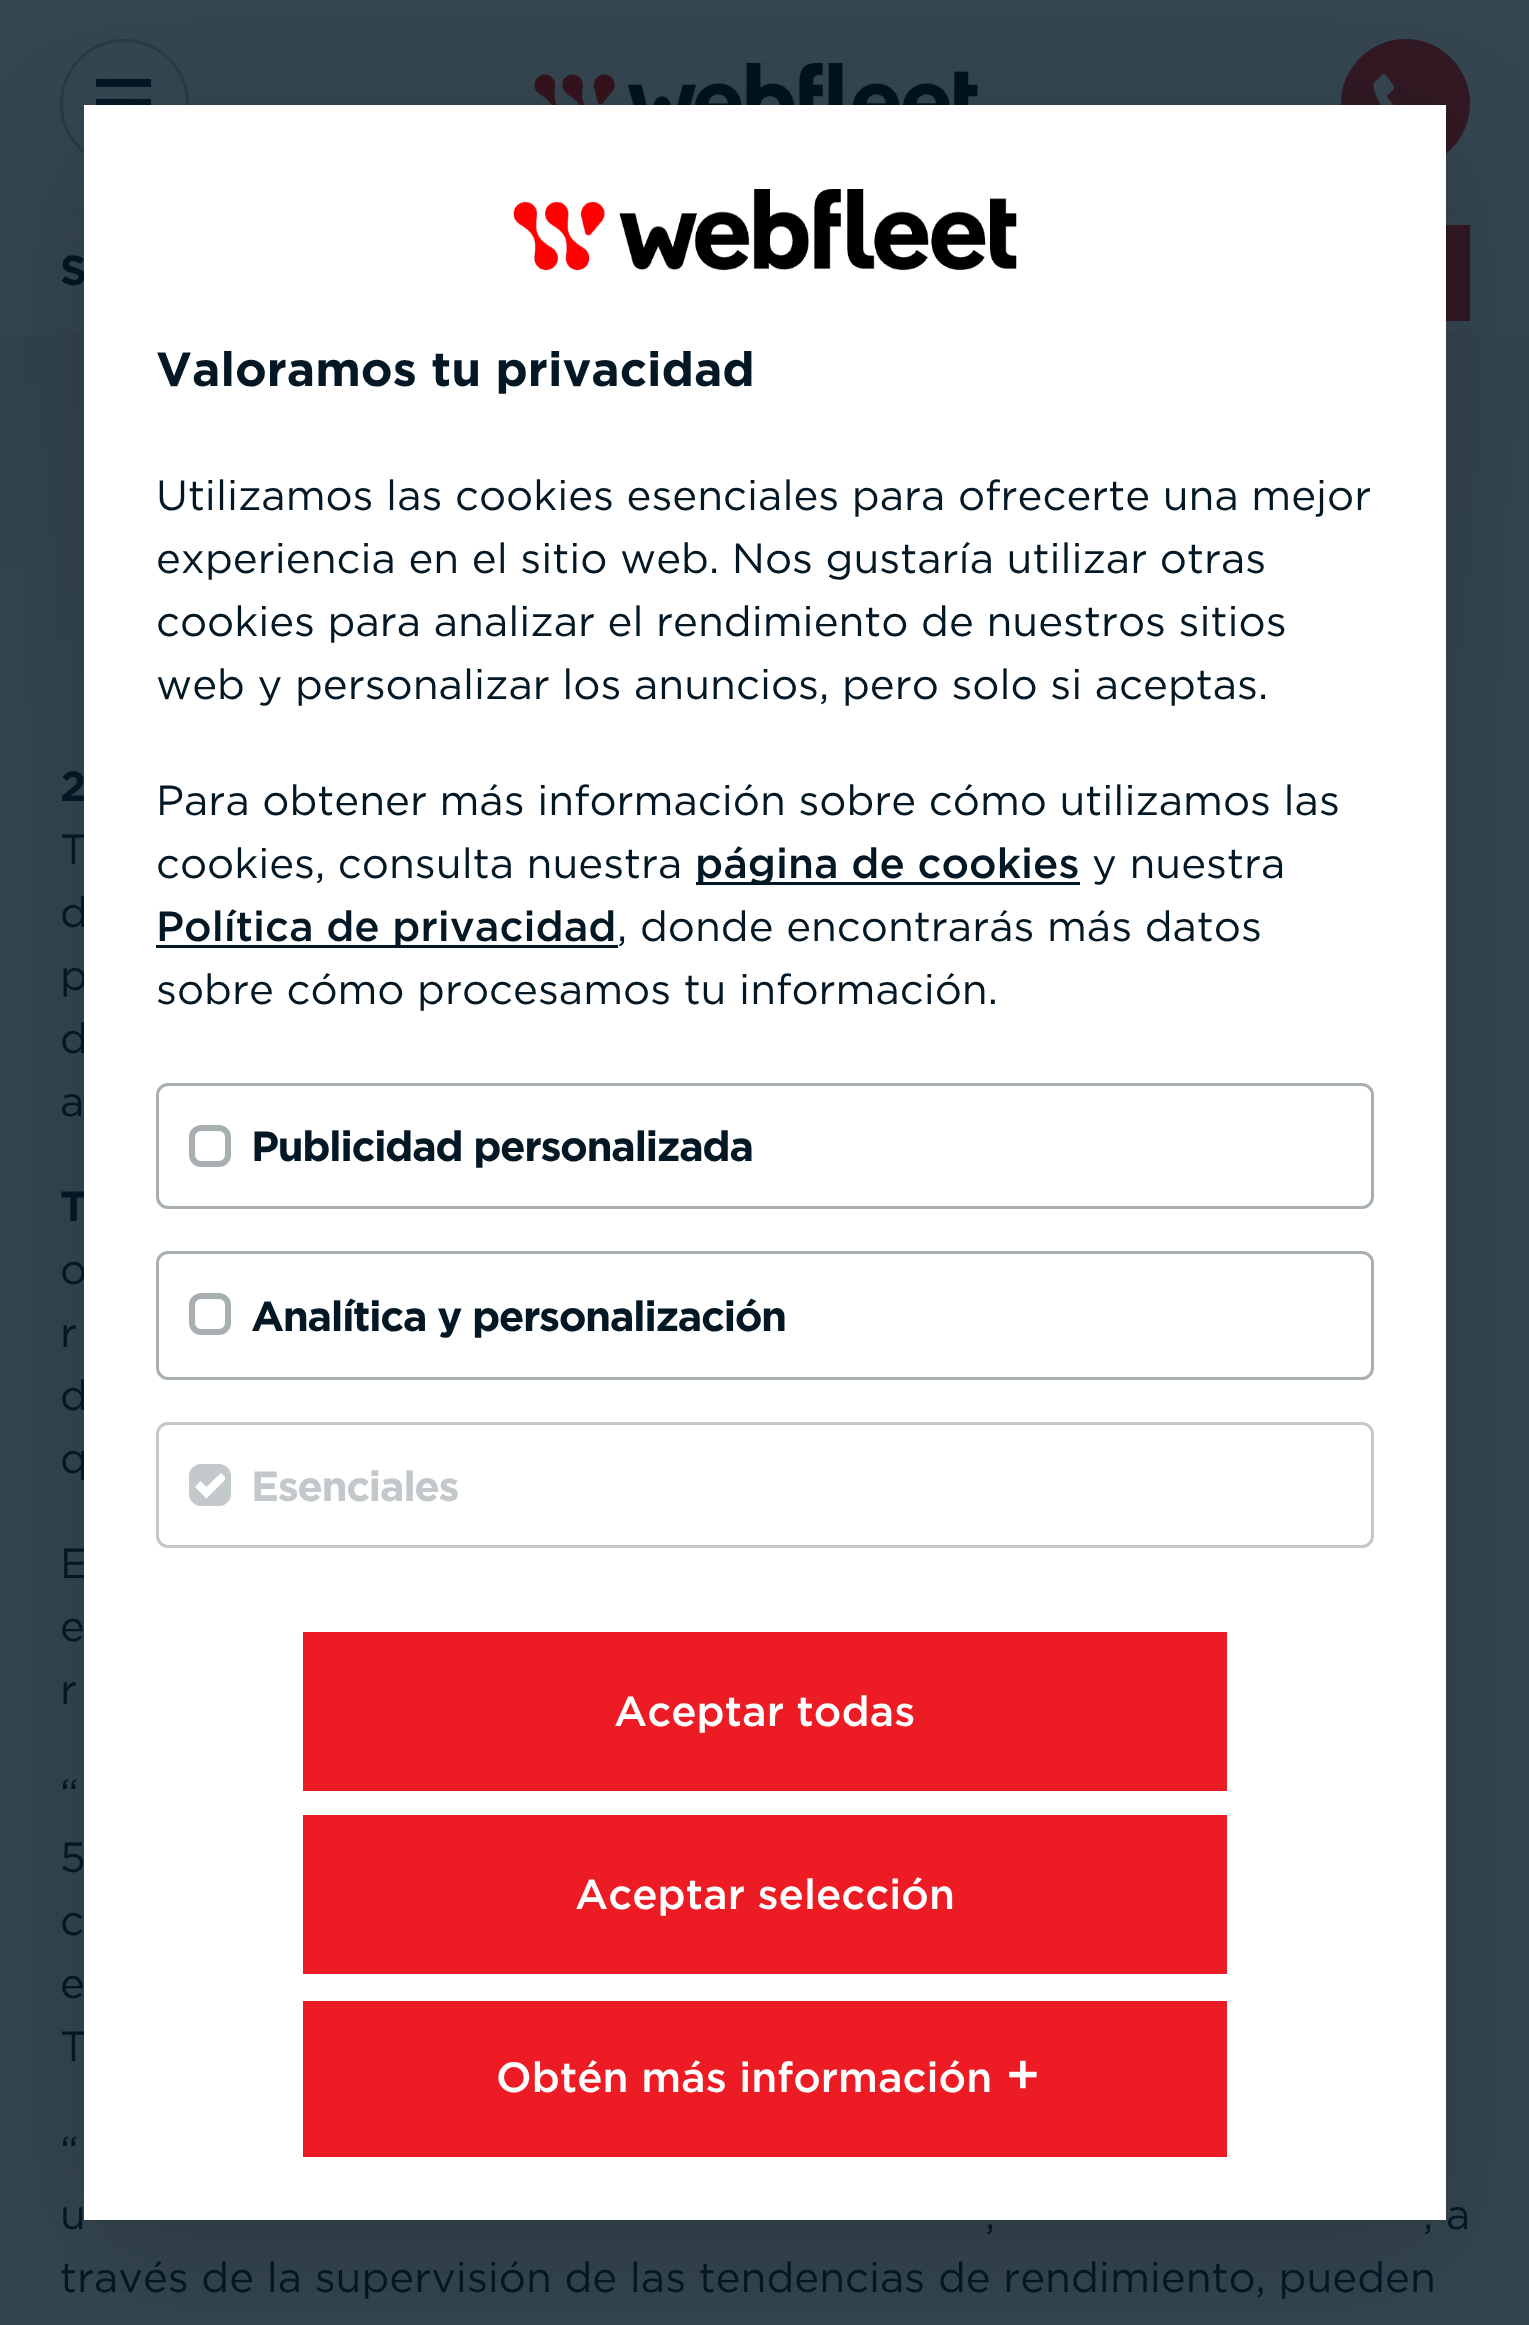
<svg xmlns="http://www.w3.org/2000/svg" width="1529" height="2325">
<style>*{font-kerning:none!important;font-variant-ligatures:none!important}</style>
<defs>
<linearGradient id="g1" gradientUnits="userSpaceOnUse" x1="-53" y1="101" x2="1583" y2="571"><stop offset="0" stop-color="#2f404a"/><stop offset="1" stop-color="#32434d"/></linearGradient>
<linearGradient id="g2" gradientUnits="userSpaceOnUse" x1="765" y1="-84" x2="765" y2="756"><stop offset="0" stop-color="#354650" stop-opacity="0"/><stop offset="0.97" stop-color="#354650"/></linearGradient>
<clipPath id="clip1"><rect x="195" y="1470" width="30" height="30"/></clipPath>
</defs>
<rect width="100%" height="100%" fill="#354650"/>
<image x="45" y="207" width="1442" height="3" href="media/1.png"/>
<circle cx="124.5" cy="103.5" r="63" fill="none" stroke="#293b45" stroke-width="3"/>
<path d="M151 79v8h-55v-8zm0 20v8h-55v-8zm0 20v7h-55v-7z" fill="#031824"/>
<image x="534" y="63" width="444" height="42" href="media/2.png"/>
<circle cx="1405.5" cy="103.5" r="64.5" fill="#321924"/>
<image x="1373" y="74" width="22" height="31" href="media/3.png"/>
<image x="45" y="333" width="1442" height="3" href="media/4.png"/>
<text x="60" y="285" style="font-family:'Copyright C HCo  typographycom';font-size:42px;fill:#031824">S</text>
<rect x="1446" y="225" width="24" height="96" fill="#321924"/>
<rect y="336" width="1529" height="390" fill="url(#g1)"/>
<rect y="336" width="1529" height="390" fill="url(#g2)"/>
<rect x="84" y="147" width="1362" height="2115" fill="#0000002e" filter="blur(63px)"/>
<text x="60" y="864" style="font-family:'Copyright C HCo  typographycom';font-size:42px;font-weight:300;fill:#031824">T</text>
<text x="60" y="927" style="font-family:'Copyright C HCo  typographycom';font-size:42px;font-weight:300;fill:#031824">d</text>
<text x="60" y="990" style="font-family:'Copyright C HCo  typographycom';font-size:42px;font-weight:300;fill:#031824">p</text>
<text x="60" y="1053" style="font-family:'Copyright C HCo  typographycom';font-size:42px;font-weight:300;fill:#031824">d</text>
<text x="60" y="1221" style="font-family:'Copyright C HCo  typographycom';font-size:42px;fill:#031824">T</text>
<text x="60" y="1284" style="font-family:'Copyright C HCo  typographycom';font-size:42px;font-weight:300;fill:#031824">o</text>
<text x="60" y="1410" style="font-family:'Copyright C HCo  typographycom';font-size:42px;font-weight:300;fill:#031824">d</text>
<text x="60" y="1473" style="font-family:'Copyright C HCo  typographycom';font-size:42px;font-weight:300;fill:#031824">q</text>
<text x="60" y="1578" style="font-family:'Copyright C HCo  typographycom';font-size:42px;font-weight:300;fill:#031824">E</text>
<text x="60" y="2061" style="font-family:'Copyright C HCo  typographycom';font-size:42px;font-weight:300;fill:#031824">T</text>
<text x="1423" y="2229" style="font-family:'Copyright C HCo  typographycom';font-size:42px;font-weight:300;fill:#031824">, a</text>
<rect x="84" y="105" width="1362" height="2115" fill="#fff"/>
<image x="513" y="189" width="504" height="82" href="media/5.png"/>
<text x="156" y="386" style="font-family:'Copyright C HCo  typographycom';font-size:48px;fill:#031824">Valoramos tu privacidad</text>
<text x="156" y="510" style="font-family:'Copyright C HCo  typographycom';font-size:42px;font-weight:300;fill:#031824">Utilizamos las cookies esenciales para ofrecerte una mejor</text>
<text x="156" y="573" style="font-family:'Copyright C HCo  typographycom';font-size:42px;font-weight:300;fill:#031824">experiencia en el sitio web. Nos gustaría utilizar otras</text>
<text x="156" y="636" style="font-family:'Copyright C HCo  typographycom';font-size:42px;font-weight:300;fill:#031824">cookies para analizar el rendimiento de nuestros sitios</text>
<text x="156" y="699" style="font-family:'Copyright C HCo  typographycom';font-size:42px;font-weight:300;fill:#031824">web y personalizar los anuncios, pero solo si aceptas.</text>
<text x="156" y="815" style="font-family:'Copyright C HCo  typographycom';font-size:42px;font-weight:300;fill:#031824">Para obtener más información sobre cómo utilizamos las</text>
<text x="156" y="878" style="font-family:'Copyright C HCo  typographycom';font-size:42px;font-weight:300;fill:#031824">cookies, consulta nuestra</text>
<rect x="696" y="882" width="384" height="3" fill="#031824"/>
<text x="695" y="878" style="font-family:'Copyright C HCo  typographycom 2';font-size:42px;font-weight:300;fill:#031824">página de cookies</text>
<text x="1092" y="878" style="font-family:'Copyright C HCo  typographycom';font-size:42px;font-weight:300;fill:#031824">y nuestra</text>
<rect x="156" y="945" width="462" height="3" fill="#031824"/>
<text x="156" y="941" style="font-family:'Copyright C HCo  typographycom 2';font-size:42px;font-weight:300;fill:#031824">Política de privacidad</text>
<text x="617" y="941" style="font-family:'Copyright C HCo  typographycom';font-size:42px;font-weight:300;fill:#031824">, donde encontrarás más datos</text>
<text x="156" y="1004" style="font-family:'Copyright C HCo  typographycom';font-size:42px;font-weight:300;fill:#031824">sobre cómo procesamos tu información.</text>
<rect x="157.5" y="1084.5" width="1215" height="123" rx="10.5" fill="none" stroke="#a8afb3" stroke-width="3"/>
<rect x="192" y="1128" width="36" height="36" rx="9" fill="none" stroke="#a8afb3" stroke-width="6"/>
<text x="251" y="1161" style="font-family:'Copyright C HCo  typographycom';font-size:42px;letter-spacing:-1.5px;fill:#031824">Publicidad personalizada</text>
<rect x="157.5" y="1252.5" width="1215" height="126" rx="10.5" fill="none" stroke="#a8afb3" stroke-width="3"/>
<rect x="192" y="1296" width="36" height="36" rx="9" fill="none" stroke="#a8afb3" stroke-width="6"/>
<text x="251" y="1331" style="font-family:'Copyright C HCo  typographycom';font-size:42px;letter-spacing:-1.5px;fill:#031824">Analítica y personalización</text>
<rect x="157.5" y="1423.5" width="1215" height="123" rx="10.5" fill="none" stroke="#c3c8cb" stroke-width="3"/>
<rect x="192" y="1467" width="36" height="36" rx="9" fill="#c3c8cb" stroke="#c3c8cb" stroke-width="6"/>
<text x="251" y="1501" style="font-family:'Copyright C HCo  typographycom';font-size:42px;letter-spacing:-1.5px;fill:#c3c8cb">Esenciales</text>
<g clip-path="url(#clip1)">
<path d="M221 1473l-14.5 14l-6-6l-5.5 6l11.5 11.5l20-20z" fill="#fff"/>
</g>
<rect x="303" y="1632" width="924" height="159" fill="#ed1c24"/>
<text x="614" y="1726" style="font-family:'Copyright C HCo  typographycom 2';font-size:42px;font-weight:300;fill:#fff">Aceptar todas</text>
<rect x="303" y="1815" width="924" height="159" fill="#ed1c24"/>
<text x="575" y="1909" style="font-family:'Copyright C HCo  typographycom 2';font-size:42px;font-weight:300;fill:#fff">Aceptar selección</text>
<rect x="303" y="2001" width="924" height="156" fill="#ed1c24"/>
<text x="496" y="2092" style="font-family:'Copyright C HCo  typographycom 2';font-size:42px;font-weight:300;fill:#fff">Obtén más información</text>
<image x="1009" y="2060" width="28" height="29" href="media/6.png"/>
<text x="60" y="801" style="font-family:'Copyright C HCo  typographycom';font-size:42px;fill:#031824">2</text>
<text x="60" y="1116" style="font-family:'Copyright C HCo  typographycom';font-size:42px;font-weight:300;fill:#031824">a</text>
<text x="60" y="1347" style="font-family:'Copyright C HCo  typographycom';font-size:42px;font-weight:300;fill:#031824">r</text>
<text x="60" y="1641" style="font-family:'Copyright C HCo  typographycom';font-size:42px;font-weight:300;fill:#031824">e</text>
<text x="60" y="1704" style="font-family:'Copyright C HCo  typographycom';font-size:42px;font-weight:300;fill:#031824">r</text>
<text x="60" y="1809" style="font-family:'Copyright C HCo  typographycom';font-size:42px;font-weight:300;fill:#031824">“</text>
<text x="60" y="1872" style="font-family:'Copyright C HCo  typographycom';font-size:42px;font-weight:300;fill:#031824">5</text>
<text x="60" y="1935" style="font-family:'Copyright C HCo  typographycom';font-size:42px;font-weight:300;fill:#031824">c</text>
<text x="60" y="1998" style="font-family:'Copyright C HCo  typographycom';font-size:42px;font-weight:300;fill:#031824">e</text>
<text x="60" y="2166" style="font-family:'Copyright C HCo  typographycom';font-size:42px;font-weight:300;fill:#031824">“</text>
<text x="60" y="2229" style="font-family:'Copyright C HCo  typographycom';font-size:42px;font-weight:300;fill:#031824">u</text>
<text x="985" y="2229" style="font-family:'Copyright C HCo  typographycom';font-size:42px;font-weight:300;fill:#031824">,</text>
<text x="60" y="2292" style="font-family:'Copyright C HCo  typographycom';font-size:42px;font-weight:300;fill:#031824">través de la supervisión de las tendencias de rendimiento, pueden</text>
</svg>
